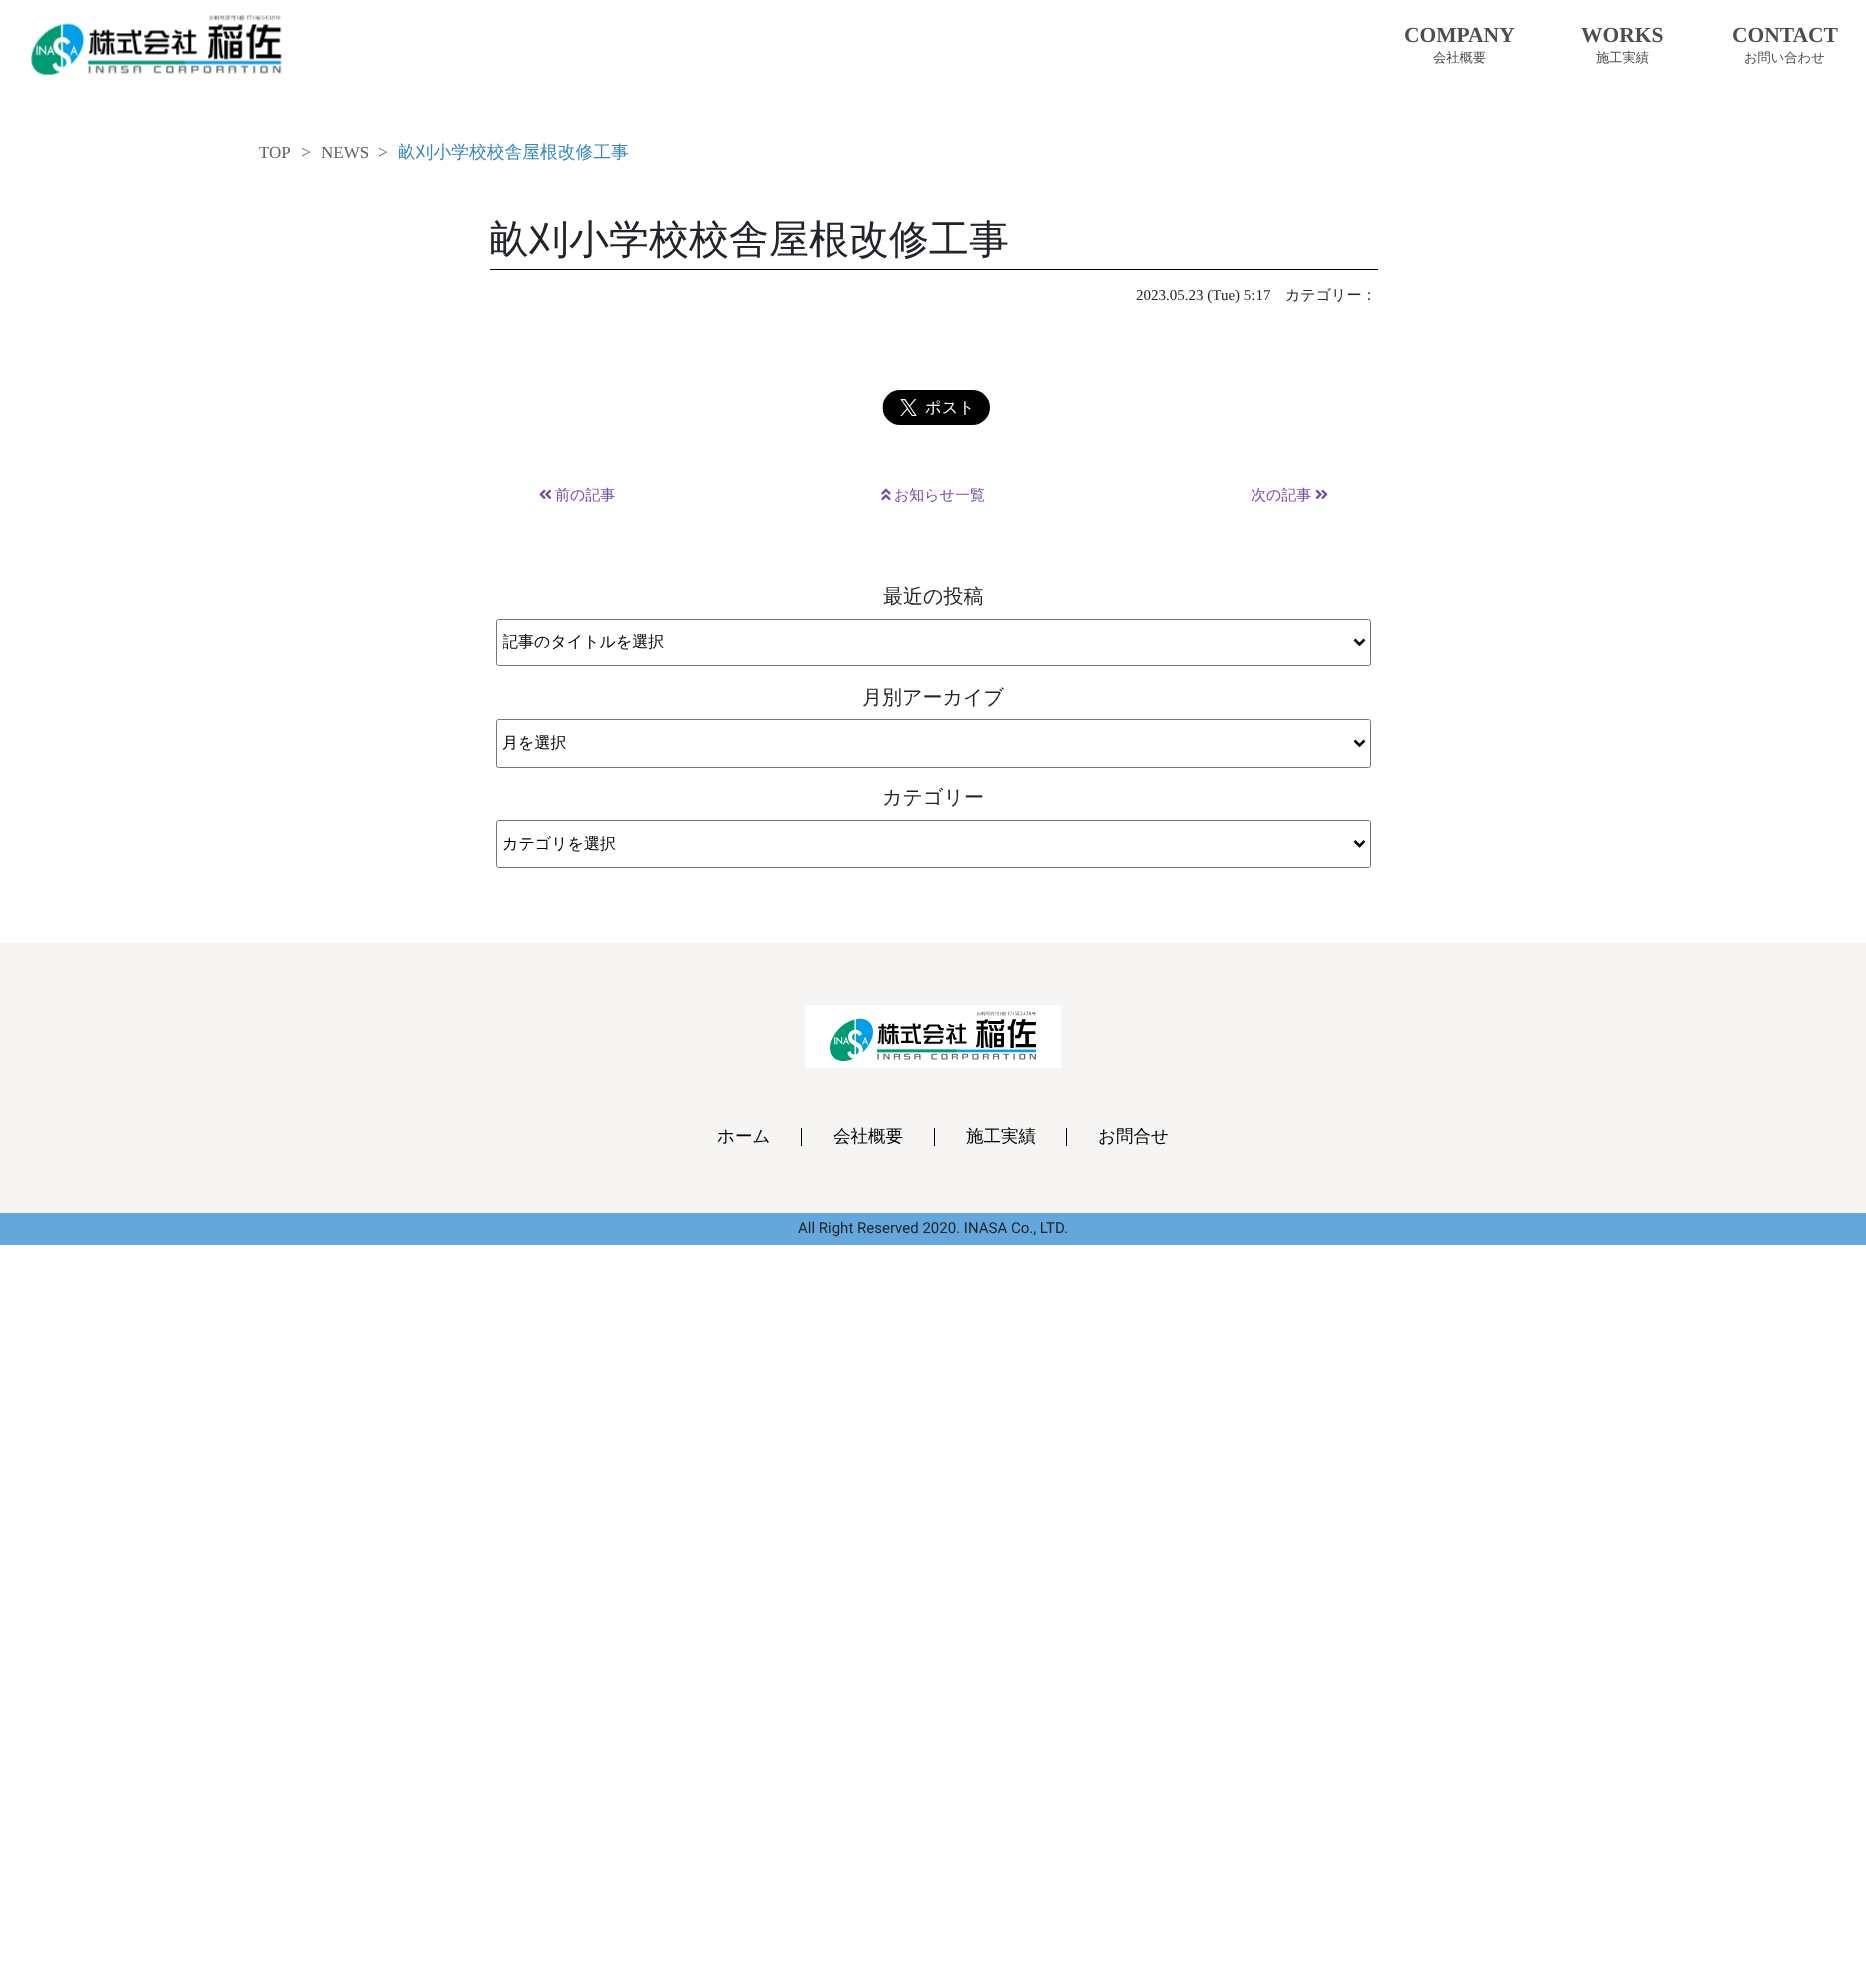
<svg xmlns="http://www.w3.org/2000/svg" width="1866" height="1961">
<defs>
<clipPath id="clip1"><rect x="503" y="633" width="847" height="20"/></clipPath>
</defs>
<rect width="100%" height="100%" fill="#fff"/>
<image x="31" y="15" width="251" height="61" href="media/1.png"/>
<text x="1404" y="42" style="font-family:Liberation Serif;font-size:21.5px;font-weight:bold;fill:#4d4d4d">COMPANY</text>
<text x="1433" y="62" style="font-family:WenQuanYi Zen Hei;font-size:13.25px;font-weight:500;fill:#4d4d4d">会社概要</text>
<text x="1581" y="42" style="font-family:Liberation Serif;font-size:21.5px;font-weight:bold;fill:#4d4d4d">WORKS</text>
<text x="1596" y="62" style="font-family:WenQuanYi Zen Hei;font-size:13.25px;font-weight:500;fill:#4d4d4d">施工実績</text>
<text x="1732" y="42" style="font-family:Liberation Serif;font-size:21.5px;font-weight:bold;fill:#4d4d4d">CONTACT</text>
<text x="1744" y="62" style="font-family:WenQuanYi Zen Hei;font-size:13.25px;font-weight:500;fill:#4d4d4d">お問い合わせ</text>
<text x="259" y="158" style="font-family:Liberation Serif;font-size:17px;fill:#606060">TOP</text>
<text x="301" y="158" style="font-family:Liberation Serif;font-size:17.75px;fill:#606060">&gt;</text>
<text x="321" y="158" style="font-family:Liberation Serif;font-size:17px;fill:#606060">NEWS</text>
<text x="378" y="158" style="font-family:Liberation Serif;font-size:17.75px;fill:#606060">&gt;</text>
<text x="398" y="158" style="font-family:WenQuanYi Zen Hei;font-size:17.75px;font-weight:500;fill:#3688bf">畝刈小学校校舎屋根改修工事</text>
<rect x="490" y="269" width="888" height="1" fill="#000"/>
<text x="489" y="253" style="font-family:WenQuanYi Zen Hei;font-size:40px;font-weight:500;fill:#212529">畝刈小学校校舎屋根改修工事</text>
<text x="1136" y="300" style="font-family:Liberation Serif;font-size:15px;fill:#212529">2023.05.23 (Tue) 5:17</text>
<text x="1285" y="300" style="font-family:WenQuanYi Zen Hei;font-size:15px;font-weight:500;fill:#212529">カテゴリー：</text>
<image x="882" y="390" width="108" height="35" href="media/2.png"/>
<image x="539" y="489" width="13" height="10" href="media/3.png"/>
<text x="555" y="500" style="font-family:WenQuanYi Zen Hei;font-size:15px;font-weight:500;fill:#794aa4">前の記事</text>
<image x="881" y="488" width="10" height="13" href="media/4.png"/>
<text x="894" y="500" style="font-family:WenQuanYi Zen Hei;font-size:15px;font-weight:500;fill:#794aa4">お知らせ一覧</text>
<text x="1251" y="500" style="font-family:WenQuanYi Zen Hei;font-size:15px;font-weight:500;fill:#794aa4">次の記事</text>
<image x="1315" y="489" width="13" height="10" href="media/5.png"/>
<text x="883" y="603" style="font-family:WenQuanYi Zen Hei;font-size:20px;font-weight:500;fill:#212529">最近の投稿</text>
<rect x="496.5" y="619.5" width="874" height="46" rx="2" fill="none" stroke="#767676"/>
<path d="M1354.5 639.5l5 5l5-5" fill="none" stroke="#000" stroke-width="2.5"/>
<g clip-path="url(#clip1)">
<text x="502" y="647" style="font-family:WenQuanYi Zen Hei;font-size:16px;font-weight:500;fill:#000">記事のタイトルを選択</text>
</g>
<text x="862" y="704" style="font-family:WenQuanYi Zen Hei;font-size:20px;font-weight:500;fill:#212529">月別アーカイブ</text>
<rect x="496.5" y="719.5" width="874" height="48" rx="2" fill="none" stroke="#767676"/>
<path d="M1354.5 740.5l5 5l5-5" fill="none" stroke="#000" stroke-width="2.5"/>
<text x="502" y="748" style="font-family:WenQuanYi Zen Hei;font-size:16px;font-weight:500;fill:#000">月を選択</text>
<text x="882" y="804" style="font-family:WenQuanYi Zen Hei;font-size:20px;font-weight:500;fill:#212529">カテゴリー</text>
<rect x="496.5" y="820.5" width="874" height="47" rx="2" fill="none" stroke="#767676"/>
<path d="M1354.5 841l5 5l5-5" fill="none" stroke="#000" stroke-width="2.5"/>
<text x="502" y="849" style="font-family:WenQuanYi Zen Hei;font-size:16px;font-weight:500;fill:#000">カテゴリを選択</text>
<rect y="943" width="1866" height="270" fill="#f7f5f3"/>
<rect x="805" y="1005" width="256" height="63" fill="#fff"/>
<image x="830" y="1011" width="206" height="50" href="media/6.png"/>
<text x="717" y="1142" style="font-family:WenQuanYi Zen Hei;font-size:17.5px;font-weight:500;fill:#000">ホーム</text>
<rect x="801" y="1128" width="1" height="18" fill="#000"/>
<text x="833" y="1142" style="font-family:WenQuanYi Zen Hei;font-size:17.5px;font-weight:500;fill:#000">会社概要</text>
<rect x="934" y="1128" width="1" height="18" fill="#000"/>
<text x="966" y="1142" style="font-family:WenQuanYi Zen Hei;font-size:17.5px;font-weight:500;fill:#000">施工実績</text>
<rect x="1066" y="1128" width="1" height="18" fill="#000"/>
<text x="1098" y="1142" style="font-family:WenQuanYi Zen Hei;font-size:17.5px;font-weight:500;fill:#000">お問合せ</text>
<rect y="1213" width="1866" height="32" fill="#64a7dc"/>
<text x="798" y="1233" style="font-family:Roboto;font-size:15px;fill:#212529">All Right Reserved 2020. INASA Co., LTD.</text>
</svg>
